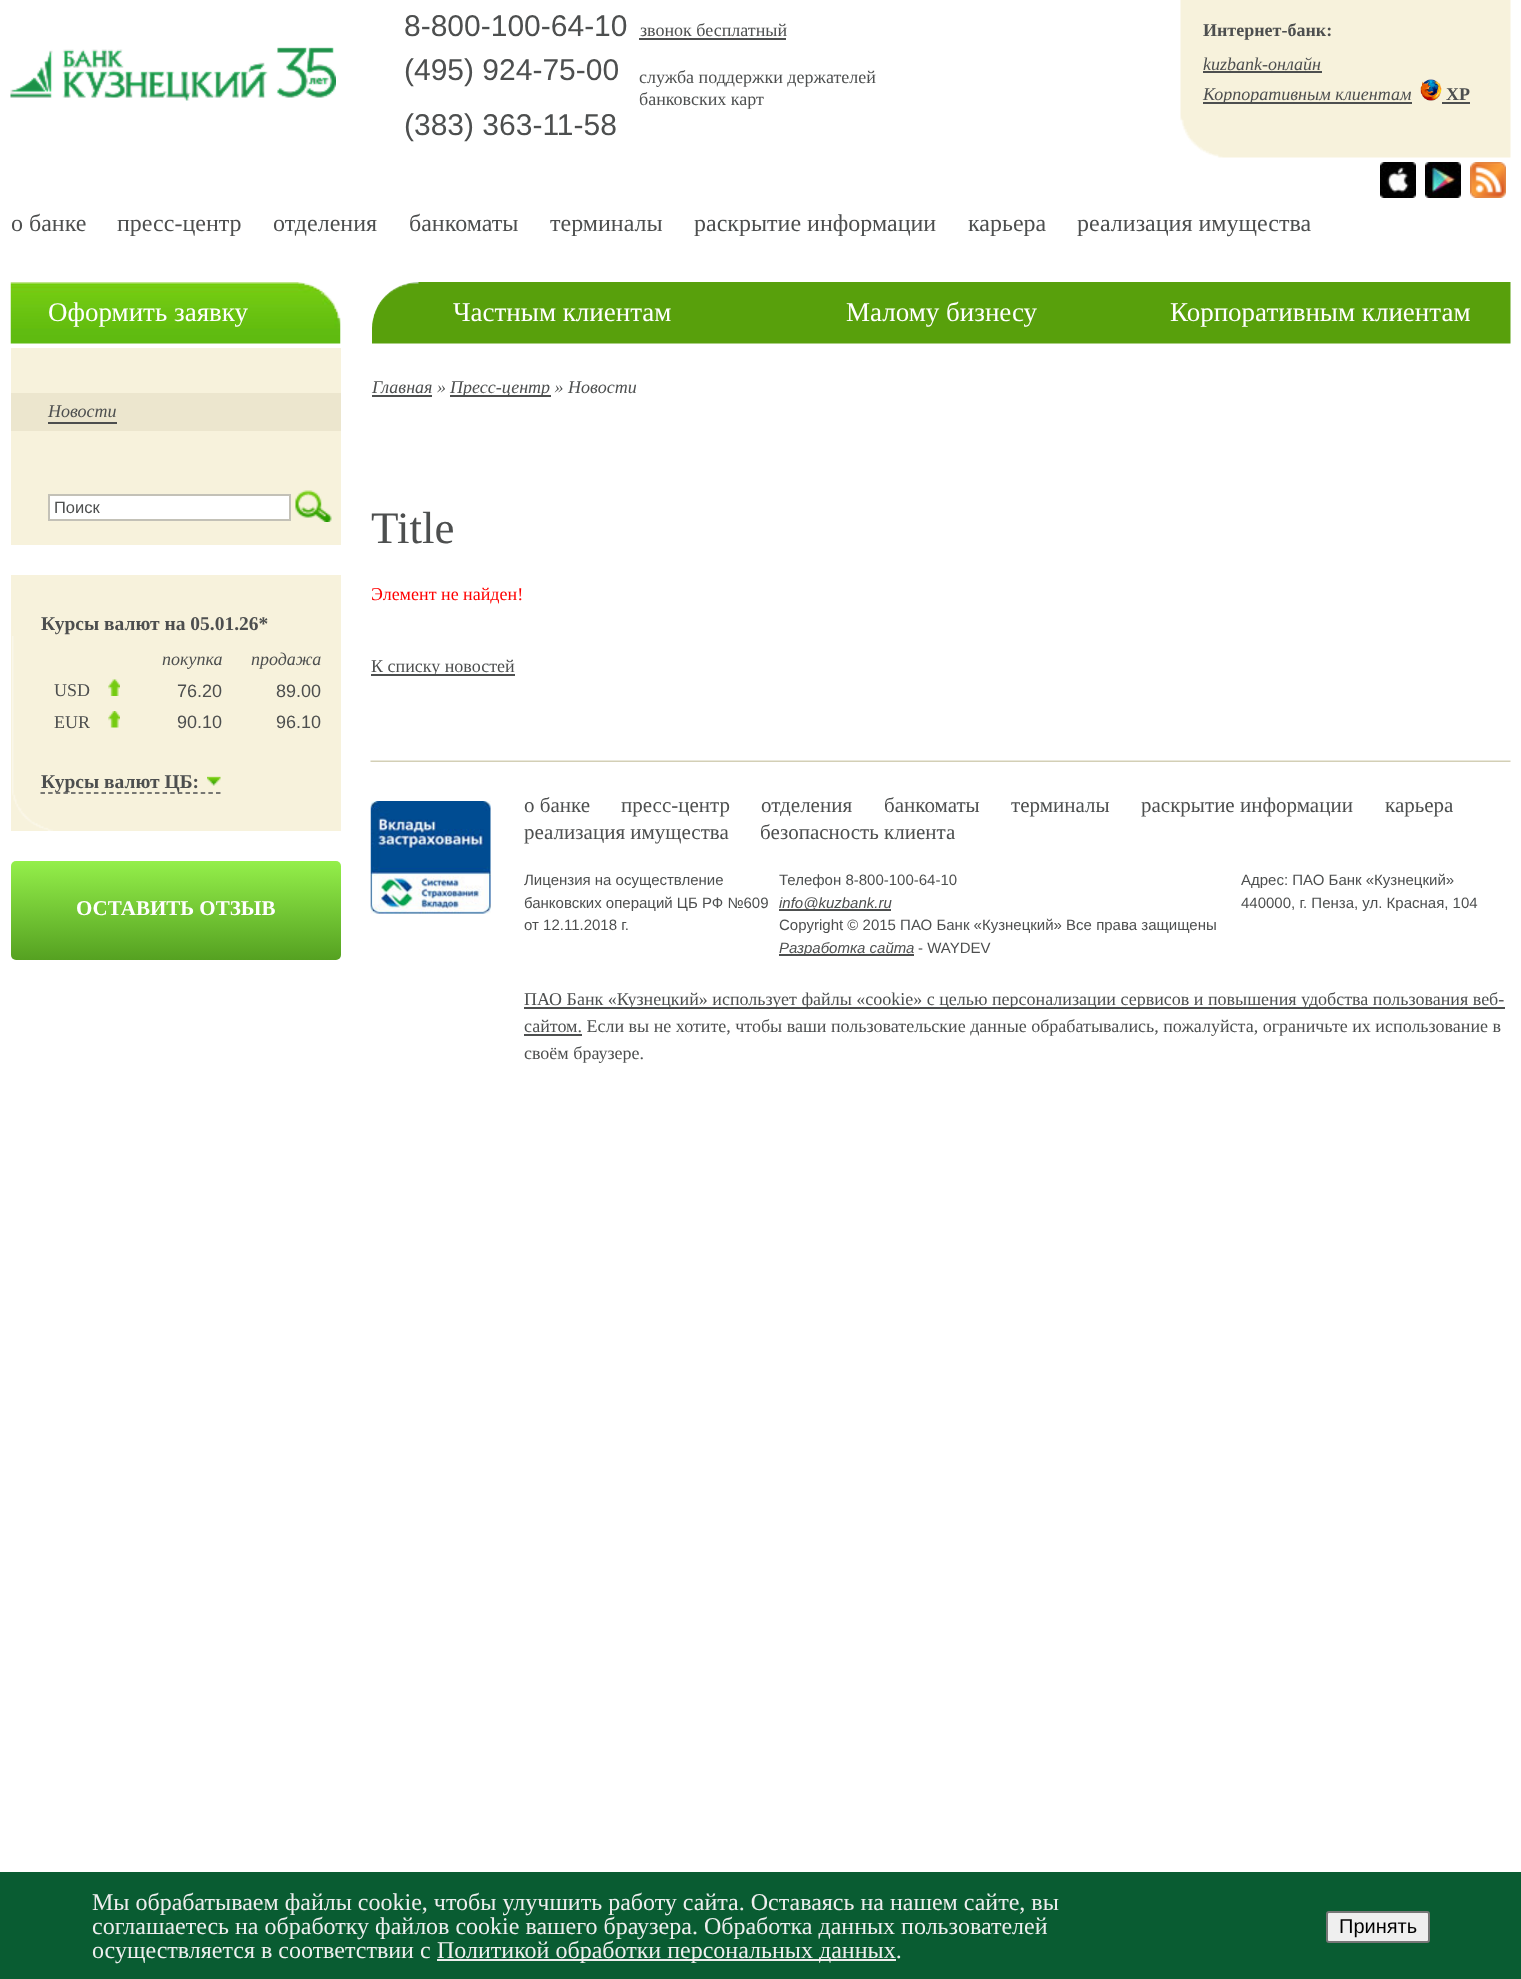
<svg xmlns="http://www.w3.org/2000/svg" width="1521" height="1979">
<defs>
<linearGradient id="g1" gradientUnits="userSpaceOnUse" x1="176" y1="960" x2="176" y2="861"><stop offset="0" stop-color="#55a121"/><stop offset="1" stop-color="#94ef4a"/></linearGradient>
</defs>
<rect width="100%" height="100%" fill="#fff"/>
<image x="10" y="47" width="326" height="54" href="media/1.png"/>
<text x="404" y="36" style="font-family:Liberation Sans;font-size:30px;fill:#4d4f4f">8-800-100-64-10</text>
<text x="640" y="36" style="font-family:Liberation Serif;font-size:18px;fill:#4d4f4f">звонок бесплатный</text>
<rect x="639" y="38" width="147" height="2" fill="#4d4f4f"/>
<text x="404" y="80" style="font-family:Liberation Sans;font-size:30px;fill:#4d4f4f">(495) 924-75-00</text>
<text x="639" y="83" style="font-family:Liberation Serif;font-size:18px;fill:#4d4f4f">служба поддержки держателей</text>
<text x="639" y="105" style="font-family:Liberation Serif;font-size:18px;fill:#4d4f4f">банковских карт</text>
<text x="404" y="135" style="font-family:Liberation Sans;font-size:30px;fill:#4d4f4f">(383) 363-11-58</text>
<image x="1180" y="0" width="331" height="158" href="media/2.png"/>
<text x="1203" y="36" style="font-family:Liberation Serif;font-size:18px;font-weight:bold;fill:#4d4f4f">Интернет-банк:</text>
<text x="1203" y="70" style="font-family:Liberation Serif;font-size:18px;font-style:italic;fill:#4d4f4f">kuzbank-онлайн</text>
<rect x="1203" y="71" width="119" height="2" fill="#4d4f4f"/>
<rect x="1203" y="102" width="209" height="2" fill="#4d4f4f"/>
<text x="1203" y="100" style="font-family:Liberation Serif;font-size:18px;font-style:italic;fill:#4d4f4f">Корпоративным клиентам</text>
<image x="1420" y="79" width="22" height="22" href="media/3.png"/>
<text x="1446" y="100" style="font-family:Liberation Serif;font-size:18px;font-weight:bold;fill:#4d4f4f">XP</text>
<rect x="1442" y="102" width="28" height="2" fill="#4d4f4f"/>
<image x="1380" y="162" width="36" height="36" href="media/4.png"/>
<image x="1425" y="162" width="36" height="36" href="media/5.png"/>
<image x="1470" y="162" width="36" height="36" href="media/6.png"/>
<text x="11" y="231" style="font-family:Liberation Serif;font-size:24px;fill:#4d4f4f">о банке</text>
<text x="117" y="231" style="font-family:Liberation Serif;font-size:24px;fill:#4d4f4f">пресс-центр</text>
<text x="273" y="231" style="font-family:Liberation Serif;font-size:24px;fill:#4d4f4f">отделения</text>
<text x="409" y="231" style="font-family:Liberation Serif;font-size:24px;fill:#4d4f4f">банкоматы</text>
<text x="550" y="231" style="font-family:Liberation Serif;font-size:24px;fill:#4d4f4f">терминалы</text>
<text x="694" y="231" style="font-family:Liberation Serif;font-size:24px;fill:#4d4f4f">раскрытие информации</text>
<text x="968" y="231" style="font-family:Liberation Serif;font-size:24px;fill:#4d4f4f">карьера</text>
<text x="1077" y="231" style="font-family:Liberation Serif;font-size:24px;fill:#4d4f4f">реализация имущества</text>
<image x="10" y="282" width="331" height="62" href="media/7.png"/>
<text x="48" y="321" style="font-family:Liberation Serif;font-size:27px;fill:#fff">Оформить заявку</text>
<rect x="11" y="348" width="330" height="197" fill="#f7f2dc"/>
<rect x="11" y="393" width="330" height="38" fill="#ece6ce"/>
<text x="48" y="417" style="font-family:Liberation Serif;font-size:18px;font-style:italic;fill:#4d4f4f">Новости</text>
<rect x="48" y="422" width="69" height="2" fill="#4c4e4e"/>
<rect x="49" y="495" width="241" height="25" fill="#fff" stroke="#c3c1b7" stroke-width="2"/>
<text x="54" y="513" style="font-family:Liberation Sans;font-size:16.5px;fill:#4d4f4f">Поиск</text>
<image x="295" y="490" width="37" height="32" href="media/8.png"/>
<rect x="11" y="575" width="330" height="256" fill="#f7f2dc"/>
<image x="12" y="636" width="41" height="195" href="media/9.png"/>
<text x="41" y="630" style="font-family:Liberation Serif;font-size:19.5px;font-weight:bold;fill:#4d4f4f">Курсы валют на 05.01.26*</text>
<text x="162" y="665" style="font-family:Liberation Serif;font-size:18px;font-style:italic;fill:#4d4f4f">покупка</text>
<text x="251" y="665" style="font-family:Liberation Serif;font-size:18px;font-style:italic;fill:#4d4f4f">продажа</text>
<text x="54" y="696" style="font-family:Liberation Serif;font-size:18px;fill:#4d4f4f">USD</text>
<image x="108" y="679" width="12" height="17" href="media/10.png"/>
<text x="177" y="697" style="font-family:Liberation Sans;font-size:18px;fill:#4d4f4f">76.20</text>
<text x="276" y="697" style="font-family:Liberation Sans;font-size:18px;fill:#4d4f4f">89.00</text>
<text x="54" y="728" style="font-family:Liberation Serif;font-size:18px;fill:#4d4f4f">EUR</text>
<image x="108" y="711" width="12" height="17" href="media/11.png"/>
<text x="177" y="728" style="font-family:Liberation Sans;font-size:18px;fill:#4d4f4f">90.10</text>
<text x="276" y="728" style="font-family:Liberation Sans;font-size:18px;fill:#4d4f4f">96.10</text>
<path d="M40.5 793h180" fill="none" stroke="#4d4f4f" stroke-width="1.5" stroke-dasharray="4.5 3.13"/>
<text x="41" y="788" style="font-family:Liberation Serif;font-size:19.5px;font-weight:bold;fill:#4d4f4f">Курсы валют ЦБ:</text>
<image x="207" y="776" width="14" height="10" href="media/12.png"/>
<rect x="11" y="861" width="330" height="99" rx="5" fill="url(#g1)"/>
<text x="76" y="915" style="font-family:Liberation Serif;font-size:21px;font-weight:bold;fill:#fff">ОСТАВИТЬ ОТЗЫВ</text>
<image x="372" y="282" width="1139" height="62" href="media/13.png"/>
<text x="453" y="321" style="font-family:Liberation Serif;font-size:27px;fill:#fff">Частным клиентам</text>
<text x="846" y="321" style="font-family:Liberation Serif;font-size:27px;fill:#fff">Малому бизнесу</text>
<text x="1170" y="321" style="font-family:Liberation Serif;font-size:27px;fill:#fff">Корпоративным клиентам</text>
<text x="372" y="393" style="font-family:Liberation Serif;font-size:18px;font-style:italic;fill:#4d4f4f">Главная »</text>
<rect x="372" y="395" width="60" height="2" fill="#4d4f4f"/>
<rect x="450" y="395" width="101" height="2" fill="#4d4f4f"/>
<text x="450" y="393" style="font-family:Liberation Serif;font-size:18px;font-style:italic;fill:#4d4f4f">Пресс-центр » Новости</text>
<text x="371" y="543" style="font-family:Liberation Serif;font-size:45px;fill:#4d4f4f">Title</text>
<text x="371" y="600" style="font-family:Liberation Serif;font-size:18px;fill:#f00">Элемент не найден!</text>
<rect x="371" y="674" width="144" height="2" fill="#4d4f4f"/>
<text x="371" y="672" style="font-family:Liberation Serif;font-size:18px;fill:#4d4f4f">К списку новостей</text>
<image x="370" y="760" width="1141" height="2" href="media/14.png"/>
<image x="370" y="801" width="121" height="113" href="media/15.png"/>
<text x="524" y="812" style="font-family:Liberation Serif;font-size:21px;fill:#4d4f4f">о банке</text>
<text x="621" y="812" style="font-family:Liberation Serif;font-size:21px;fill:#4d4f4f">пресс-центр</text>
<text x="761" y="812" style="font-family:Liberation Serif;font-size:21px;fill:#4d4f4f">отделения</text>
<text x="884" y="812" style="font-family:Liberation Serif;font-size:21px;fill:#4d4f4f">банкоматы</text>
<text x="1011" y="812" style="font-family:Liberation Serif;font-size:21px;fill:#4d4f4f">терминалы</text>
<text x="1141" y="812" style="font-family:Liberation Serif;font-size:21px;fill:#4d4f4f">раскрытие информации</text>
<text x="1385" y="812" style="font-family:Liberation Serif;font-size:21px;fill:#4d4f4f">карьера</text>
<text x="524" y="839" style="font-family:Liberation Serif;font-size:21px;fill:#4d4f4f">реализация имущества</text>
<text x="760" y="839" style="font-family:Liberation Serif;font-size:21px;fill:#4d4f4f">безопасность клиента</text>
<text x="524" y="885" style="font-family:Liberation Sans;font-size:15px;fill:#4d4f4f">Лицензия на осуществление</text>
<text x="524" y="908" style="font-family:Liberation Sans;font-size:15px;fill:#4d4f4f">банковских операций ЦБ РФ №609</text>
<text x="524" y="930" style="font-family:Liberation Sans;font-size:15px;fill:#4d4f4f">от 12.11.2018 г.</text>
<text x="779" y="885" style="font-family:Liberation Sans;font-size:15px;fill:#4d4f4f">Телефон 8-800-100-64-10</text>
<rect x="779" y="909" width="112" height="2" fill="#4d4f4f"/>
<text x="779" y="908" style="font-family:Liberation Sans;font-size:15px;font-style:italic;fill:#4d4f4f">info@kuzbank.ru</text>
<text x="1241" y="885" style="font-family:Liberation Sans;font-size:15px;fill:#4d4f4f">Адрес: ПАО Банк «Кузнецкий»</text>
<text x="1241" y="908" style="font-family:Liberation Sans;font-size:15px;fill:#4d4f4f">440000, г. Пенза, ул. Красная, 104</text>
<text x="779" y="930" style="font-family:Liberation Sans;font-size:15px;fill:#4d4f4f">Copyright © 2015 ПАО Банк «Кузнецкий» Все права защищены</text>
<rect x="779" y="954" width="135" height="2" fill="#4d4f4f"/>
<text x="779" y="953" style="font-family:Liberation Sans;font-size:15px;font-style:italic;fill:#4d4f4f">Разработка сайта</text>
<text x="918" y="953" style="font-family:Liberation Sans;font-size:15px;fill:#4d4f4f">- WAYDEV</text>
<rect x="524" y="1007" width="981" height="2" fill="#4d4f4f"/>
<text x="524" y="1005" style="font-family:Liberation Serif;font-size:18px;fill:#4d4f4f">ПАО Банк «Кузнецкий» использует файлы «cookie» с целью персонализации сервисов и повышения удобства пользования веб-</text>
<rect x="524" y="1034" width="58" height="2" fill="#4d4f4f"/>
<text x="524" y="1032" style="font-family:Liberation Serif;font-size:18px;fill:#4d4f4f">сайтом. Если вы не хотите, чтобы ваши пользовательские данные обрабатывались, пожалуйста, ограничьте их использование в</text>
<text x="524" y="1059" style="font-family:Liberation Serif;font-size:18px;fill:#4d4f4f">своём браузере.</text>
<rect y="1872" width="1521" height="107" fill="#095c32"/>
<text x="92" y="1910" style="font-family:Liberation Serif;font-size:24px;fill:#eee">Мы обрабатываем файлы cookie, чтобы улучшить работу сайта. Оставаясь на нашем сайте, вы</text>
<text x="92" y="1934" style="font-family:Liberation Serif;font-size:24px;fill:#eee">соглашаетесь на обработку файлов cookie вашего браузера. Обработка данных пользователей</text>
<text x="92" y="1958" style="font-family:Liberation Serif;font-size:24px;fill:#eee">осуществляется в соответствии с</text>
<rect x="437" y="1959" width="459" height="2" fill="#eee"/>
<text x="437" y="1958" style="font-family:Liberation Serif;font-size:24px;fill:#eee">Политикой обработки персональных данных.</text>
<rect x="1327" y="1912" width="102" height="30" rx="2" fill="#efefef" stroke="#767676" stroke-width="2"/>
<text x="1339" y="1933" style="font-family:Liberation Sans;font-size:20px;fill:#000">Принять</text>
</svg>
